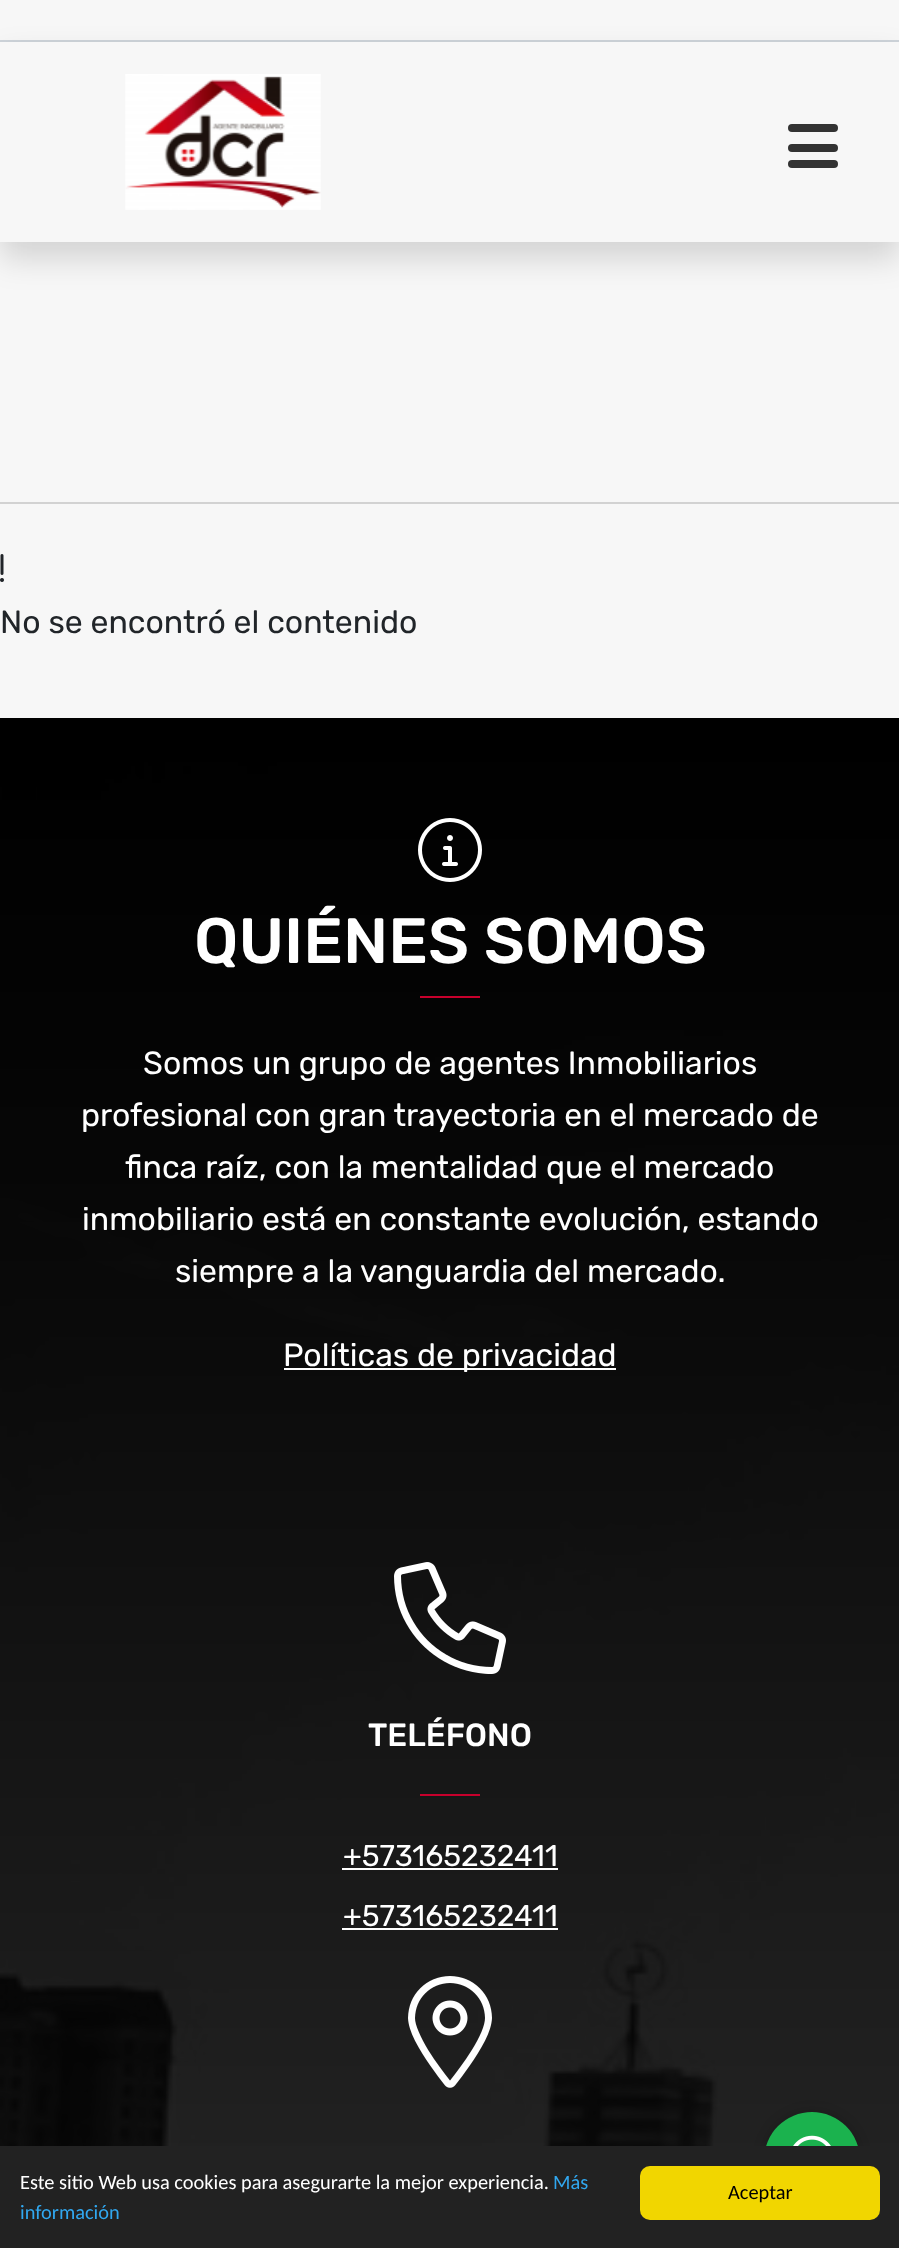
<svg xmlns="http://www.w3.org/2000/svg" width="899" height="2248">
<defs>
<clipPath id="clip1"><path d="M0 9h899v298h-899zm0 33h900v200h-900z" clip-rule="evenodd"/></clipPath>
</defs>
<rect width="100%" height="100%" fill="#f7f7f7"/>
<rect y="40" width="899" height="2" fill="#ced4da"/>
<g clip-path="url(#clip1)">
<rect y="58" width="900" height="200" fill="#00000026" filter="blur(16px)"/>
</g>
<image x="125" y="74" width="196" height="136" href="media/1.png"/>
<rect x="788" y="124" width="50" height="8" rx="4" fill="#333"/>
<rect x="788" y="144" width="50" height="8" rx="4" fill="#333"/>
<rect x="788" y="160" width="50" height="8" rx="4" fill="#333"/>
<rect y="502" width="899" height="2" fill="#d2d2d2"/>
<image x="0" y="554" width="4" height="28" href="media/2.png"/>
<text x="0" y="633" style="font-family:Rubik;font-size:32px;fill:#212529">No se encontró el contenido</text>
<image x="0" y="718" width="899" height="1428" href="media/3.png"/>
<image x="418" y="818" width="64" height="64" href="media/4.png"/>
<text x="194" y="963" style="font-family:Rubik;font-size:64px;font-weight:500;fill:#fff">QUIÉNES SOMOS</text>
<rect x="420" y="996" width="60" height="2" fill="#c7002c"/>
<text x="143" y="1074" style="font-family:Rubik;font-size:32px;fill:#fff">Somos un grupo de agentes Inmobiliarios</text>
<text x="81" y="1126" style="font-family:Rubik;font-size:32px;fill:#fff">profesional con gran trayectoria en el mercado de</text>
<text x="125" y="1178" style="font-family:Rubik;font-size:32px;fill:#fff">finca raíz, con la mentalidad que el mercado</text>
<text x="82" y="1230" style="font-family:Rubik;font-size:32px;fill:#fff">inmobiliario está en constante evolución, estando</text>
<text x="175" y="1282" style="font-family:Rubik;font-size:32px;fill:#fff">siempre a la vanguardia del mercado.</text>
<rect x="284" y="1368" width="332" height="2" fill="#fff"/>
<text x="283" y="1366" style="font-family:Rubik;font-size:32px;fill:#fff">Políticas de privacidad</text>
<image x="394" y="1562" width="112" height="112" href="media/5.png"/>
<text x="368" y="1746" style="font-family:Rubik;font-size:32px;font-weight:500;fill:#fff">TELÉFONO</text>
<rect x="420" y="1794" width="60" height="2" fill="#c7002c"/>
<text x="343" y="1866" style="font-family:Rubik;font-size:30px;fill:#fff">+573165232411</text>
<rect x="342" y="1868" width="216" height="2" fill="#fff"/>
<text x="343" y="1926" style="font-family:Rubik;font-size:30px;fill:#fff">+573165232411</text>
<rect x="342" y="1928" width="216" height="2" fill="#fff"/>
<image x="408" y="1976" width="84" height="112" href="media/6.png"/>
<rect x="764" y="2112" width="96" height="96" rx="48" fill="#00000033" filter="blur(6px)"/>
<circle cx="812" cy="2160" r="48" fill="#1bb24e"/>
<rect y="2146" width="899" height="102" fill="#222"/>
<text x="20" y="2189" style="font-family:Carlito;font-size:20.4px;fill:#fff">Este sitio Web usa cookies para asegurarte la mejor experiencia.</text>
<text x="553" y="2189" style="font-family:Carlito;font-size:20.4px;fill:#31a8f0">Más</text>
<text x="20" y="2219" style="font-family:Carlito;font-size:20.4px;fill:#31a8f0">información</text>
<rect x="640" y="2166" width="240" height="54" rx="10" fill="#f1d600"/>
<text x="728" y="2199" style="font-family:Carlito;font-size:20.4px;fill:#000">Aceptar</text>
<image x="793" y="2135" width="38" height="11" href="media/7.png"/>
</svg>
